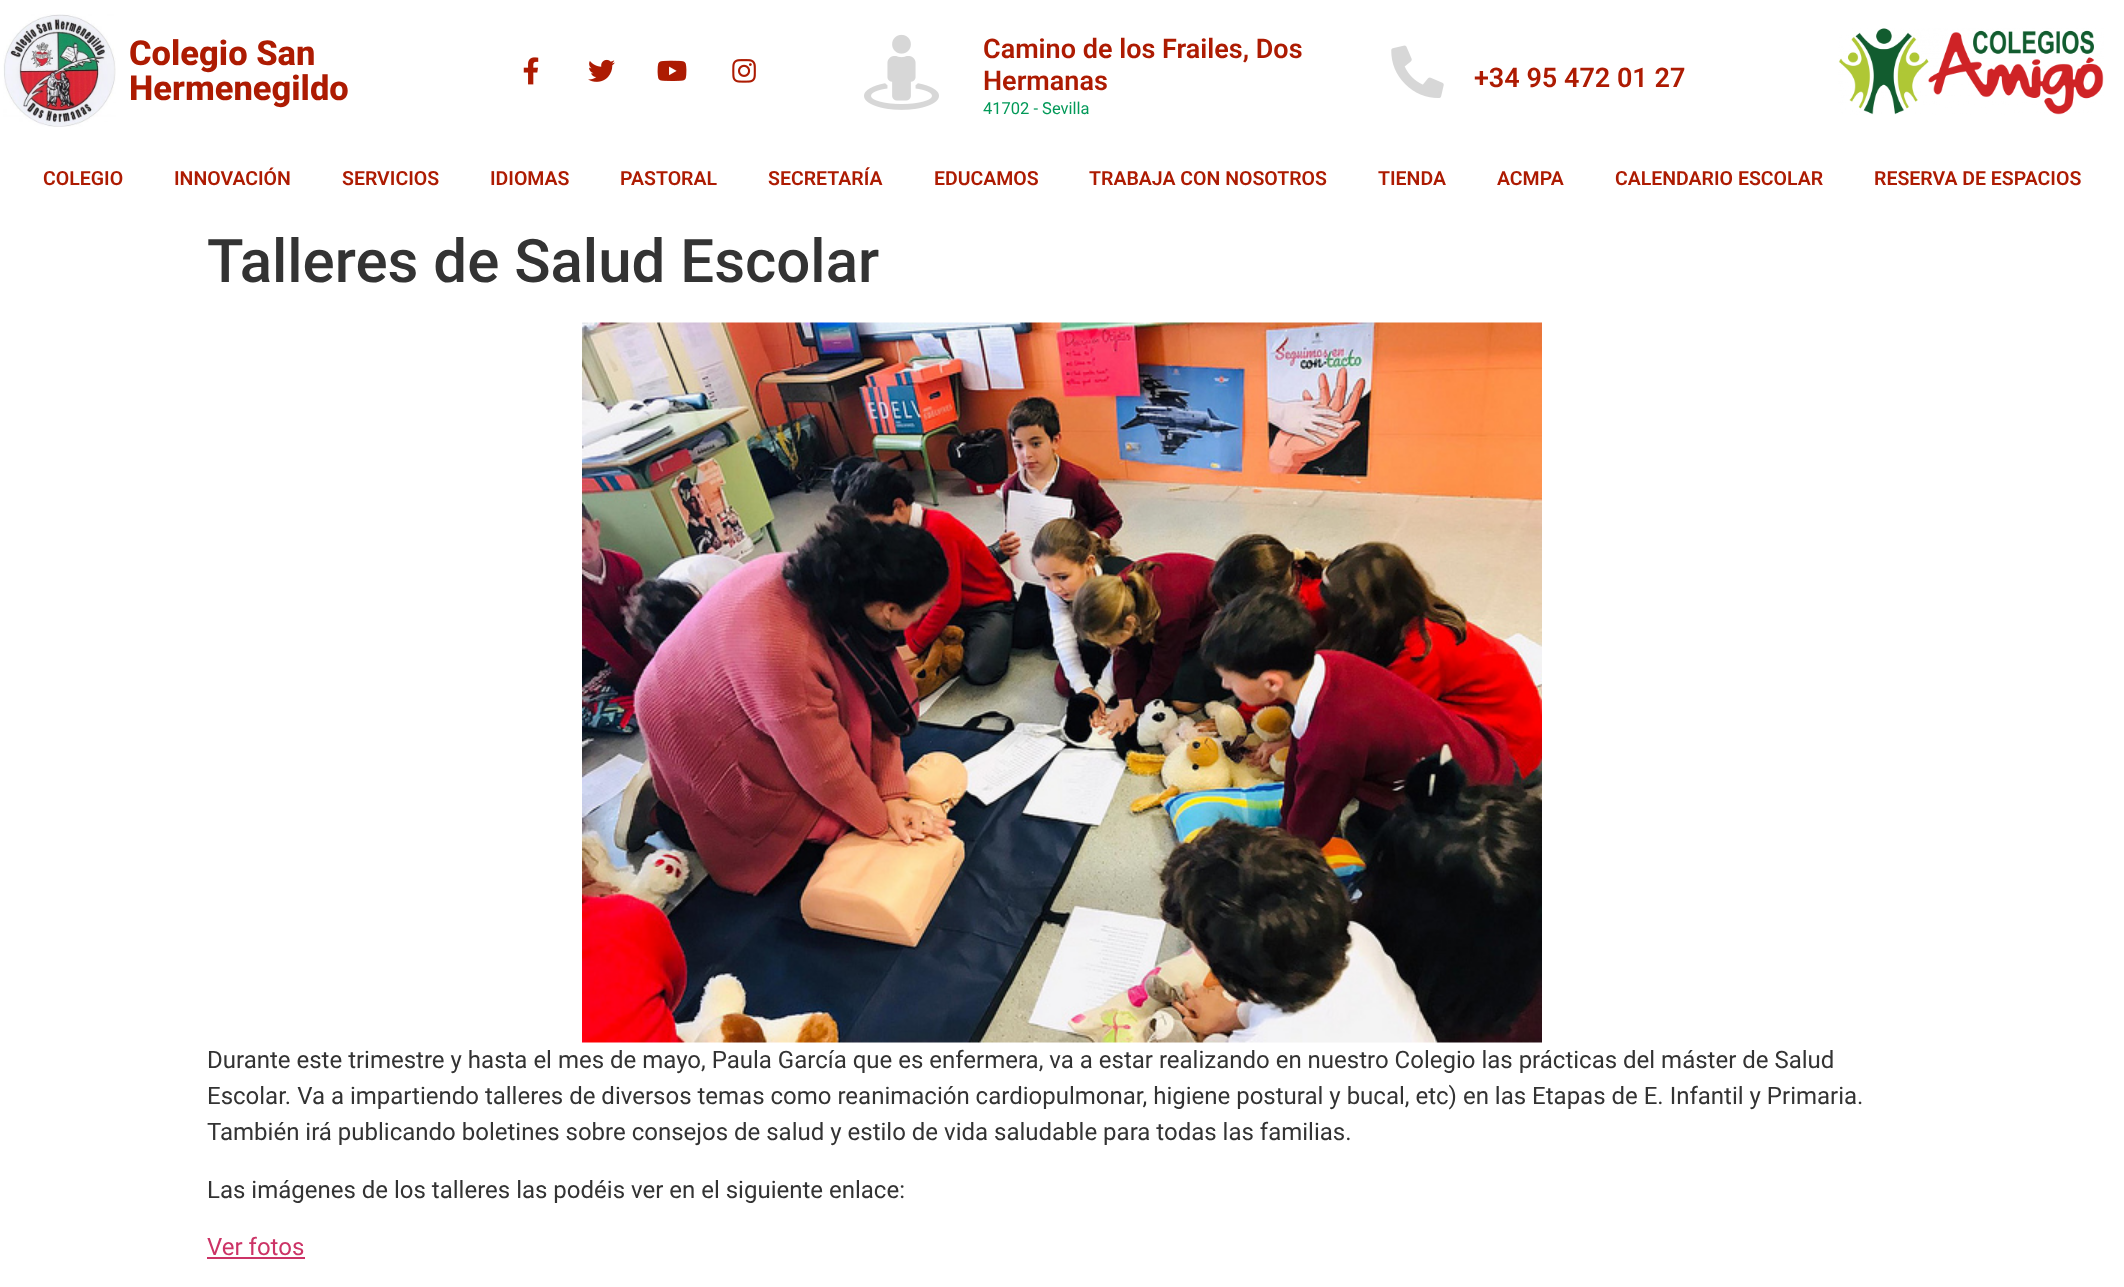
<svg xmlns="http://www.w3.org/2000/svg" width="2124" height="1287">
<rect width="100%" height="100%" fill="#fff"/>
<image x="3" y="14" width="113" height="113" href="media/1.png"/>
<text x="129" y="65" style="font-family:Roboto;font-size:34.5px;font-weight:800;fill:#ad1b02">Colegio San</text>
<text x="129" y="100" style="font-family:Roboto;font-size:34.5px;font-weight:800;fill:#ad1b02">Hermenegildo</text>
<image x="523" y="57" width="16" height="28" href="media/2.png"/>
<image x="588" y="59" width="27" height="23" href="media/3.png"/>
<image x="657" y="60" width="30" height="21" href="media/4.png"/>
<image x="732" y="59" width="24" height="24" href="media/5.png"/>
<image x="864" y="34" width="75" height="76" href="media/6.png"/>
<text x="983" y="58" style="font-family:Roboto;font-size:27px;font-weight:600;fill:#ad1b02">Camino de los Frailes, Dos</text>
<text x="983" y="90" style="font-family:Roboto;font-size:27px;font-weight:600;fill:#ad1b02">Hermanas</text>
<text x="983" y="114" style="font-family:Roboto;font-size:16.5px;fill:#029958">41702 - Sevilla</text>
<image x="1391" y="45" width="53" height="53" href="media/7.png"/>
<text x="1474" y="87" style="font-family:Roboto;font-size:27px;font-weight:600;fill:#ad1b02">+34 95 472 01 27</text>
<image x="1838" y="28" width="266" height="87" href="media/8.png"/>
<text x="43" y="185" style="font-family:Roboto;font-size:19.5px;font-weight:600;fill:#ad1b02">COLEGIO</text>
<text x="174" y="185" style="font-family:Roboto;font-size:19.5px;font-weight:600;fill:#ad1b02">INNOVACIÓN</text>
<text x="342" y="185" style="font-family:Roboto;font-size:19.5px;font-weight:600;fill:#ad1b02">SERVICIOS</text>
<text x="490" y="185" style="font-family:Roboto;font-size:19.5px;font-weight:600;fill:#ad1b02">IDIOMAS</text>
<text x="620" y="185" style="font-family:Roboto;font-size:19.5px;font-weight:600;fill:#ad1b02">PASTORAL</text>
<text x="768" y="185" style="font-family:Roboto;font-size:19.5px;font-weight:600;fill:#ad1b02">SECRETARÍA</text>
<text x="934" y="185" style="font-family:Roboto;font-size:19.5px;font-weight:600;fill:#ad1b02">EDUCAMOS</text>
<text x="1089" y="185" style="font-family:Roboto;font-size:19.5px;font-weight:600;fill:#ad1b02">TRABAJA CON NOSOTROS</text>
<text x="1378" y="185" style="font-family:Roboto;font-size:19.5px;font-weight:600;fill:#ad1b02">TIENDA</text>
<text x="1497" y="185" style="font-family:Roboto;font-size:19.5px;font-weight:600;fill:#ad1b02">ACMPA</text>
<text x="1615" y="185" style="font-family:Roboto;font-size:19.5px;font-weight:600;fill:#ad1b02">CALENDARIO ESCOLAR</text>
<text x="1874" y="185" style="font-family:Roboto;font-size:19.5px;font-weight:600;fill:#ad1b02">RESERVA DE ESPACIOS</text>
<text x="207" y="282" style="font-family:Roboto;font-size:60px;font-weight:500;fill:#333">Talleres de Salud Escolar</text>
<image x="582" y="322" width="960" height="721" href="media/9.png"/>
<text x="207" y="1068" style="font-family:Roboto;font-size:24px;fill:#333">Durante este trimestre y hasta el mes de mayo, Paula García que es enfermera, va a estar realizando en nuestro Colegio las prácticas del máster de Salud</text>
<text x="207" y="1104" style="font-family:Roboto;font-size:24px;fill:#333">Escolar. Va a impartiendo talleres de diversos temas como reanimación cardiopulmonar, higiene postural y bucal, etc) en las Etapas de E. Infantil y Primaria.</text>
<text x="207" y="1140" style="font-family:Roboto;font-size:24px;fill:#333">También irá publicando boletines sobre consejos de salud y estilo de vida saludable para todas las familias.</text>
<text x="207" y="1198" style="font-family:Roboto;font-size:24px;fill:#333">Las imágenes de los talleres las podéis ver en el siguiente enlace:</text>
<text x="207" y="1255" style="font-family:Roboto;font-size:24px;fill:#c36">Ver fotos</text>
<rect x="207" y="1257" width="98" height="2" fill="#c36"/>
</svg>
